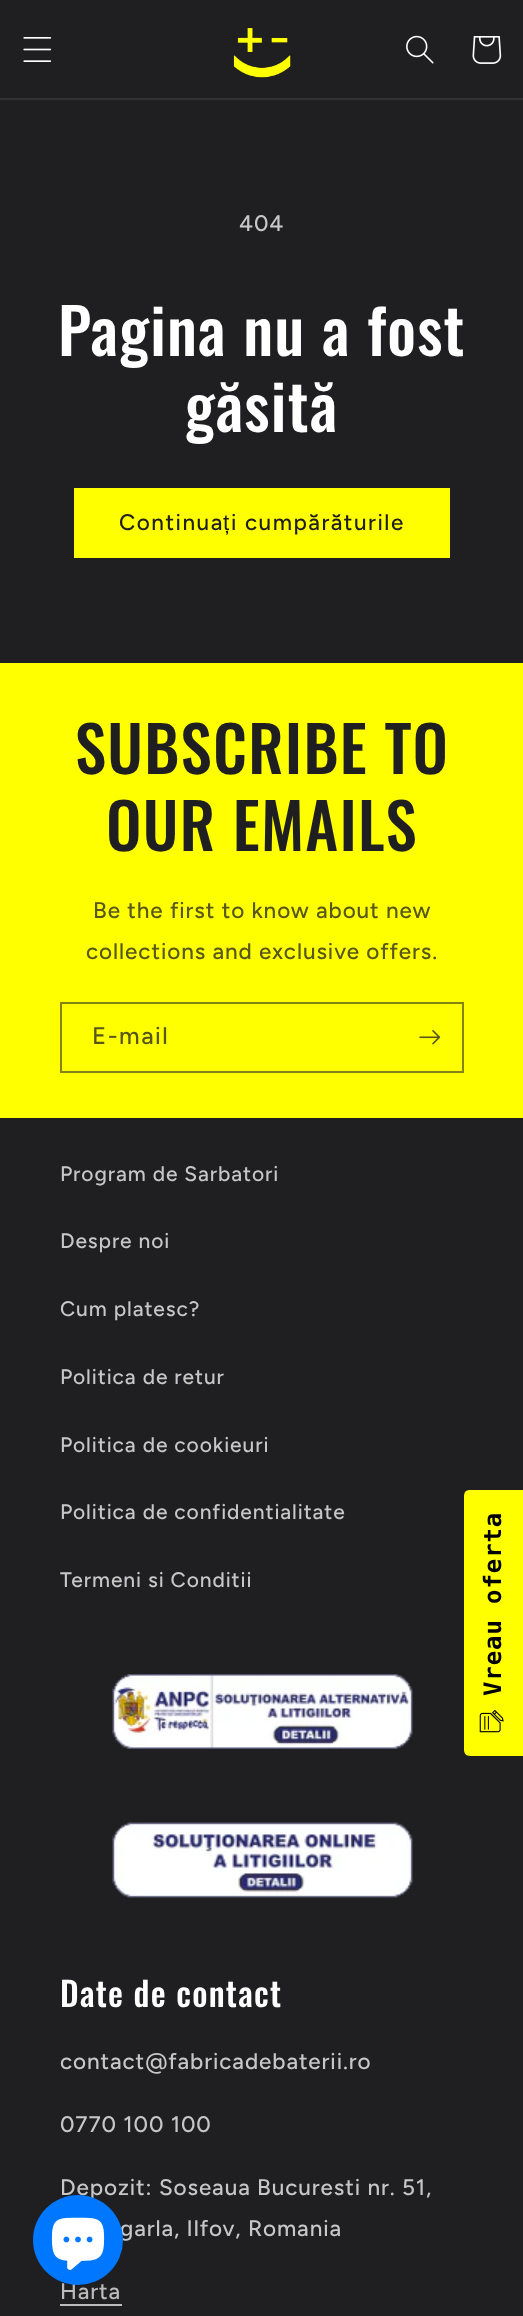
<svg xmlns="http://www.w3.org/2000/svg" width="523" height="2316">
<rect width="100%" height="100%" fill="#1f1f21"/>
<rect y="98" width="523" height="2" fill="#313133"/>
<image x="23" y="37" width="29" height="25" href="media/1.png"/>
<image x="233" y="28" width="58" height="50" href="media/2.png"/>
<image x="406" y="35" width="28" height="29" href="media/3.png"/>
<image x="472" y="36" width="30" height="28" href="media/4.png"/>
<text x="239" y="231" style="font-family:Figtree;font-size:22.5px;font-weight:500;letter-spacing:0.9px;fill:#c7c7c8">404</text>
<text x="58" y="356" style="font-family:Oswald;font-size:63px;font-weight:500;letter-spacing:1.25px;fill:#fff">Pagina nu a fost</text>
<text x="185" y="432" style="font-family:Oswald;font-size:63px;font-weight:500;letter-spacing:1.25px;fill:#fff">găsită</text>
<rect x="74" y="488" width="376" height="70" fill="#ff0"/>
<text x="119" y="530" style="font-family:Figtree;font-size:22.5px;font-weight:500;letter-spacing:1.5px;fill:#1f1f21">Continua</text>
<text x="223" y="530" style="font-family:Liberation Sans;font-size:22.5px;letter-spacing:1.5px;fill:#1f1f21">ț</text>
<text x="231" y="530" style="font-family:Figtree;font-size:22.5px;font-weight:500;letter-spacing:1.5px;fill:#1f1f21">i cumpărăturile</text>
<rect y="663" width="523" height="455" fill="#ff0"/>
<text x="75" y="774" style="font-family:Oswald;font-size:63px;font-weight:500;letter-spacing:1.25px;fill:#1f1f21">SUBSCRIBE TO</text>
<text x="106" y="851" style="font-family:Oswald;font-size:63px;font-weight:500;letter-spacing:1.25px;fill:#1f1f21">OUR EMAILS</text>
<text x="93" y="918" style="font-family:Figtree;font-size:22.5px;font-weight:500;letter-spacing:0.9px;fill:#575719">Be the first to know about new</text>
<text x="86" y="959" style="font-family:Figtree;font-size:22.5px;font-weight:500;letter-spacing:0.9px;fill:#575719">collections and exclusive offers.</text>
<rect x="61" y="1003" width="402" height="69" fill="none" stroke="#848412" stroke-width="2"/>
<text x="92" y="1044" style="font-family:Figtree;font-size:24px;font-weight:500;letter-spacing:1.5px;fill:#575719">E-mail</text>
<image x="419" y="1030" width="22" height="15" href="media/5.png"/>
<text x="60" y="1181" style="font-family:Figtree;font-size:21px;font-weight:500;letter-spacing:0.9px;fill:#c7c7c8">Program de Sarbatori</text>
<text x="60" y="1248" style="font-family:Figtree;font-size:21px;font-weight:500;letter-spacing:0.9px;fill:#c7c7c8">Despre noi</text>
<text x="60" y="1316" style="font-family:Figtree;font-size:21px;font-weight:500;letter-spacing:0.9px;fill:#c7c7c8">Cum platesc?</text>
<text x="60" y="1384" style="font-family:Figtree;font-size:21px;font-weight:500;letter-spacing:0.9px;fill:#c7c7c8">Politica de retur</text>
<text x="60" y="1452" style="font-family:Figtree;font-size:21px;font-weight:500;letter-spacing:0.9px;fill:#c7c7c8">Politica de cookieuri</text>
<text x="60" y="1519" style="font-family:Figtree;font-size:21px;font-weight:500;letter-spacing:0.9px;fill:#c7c7c8">Politica de confidentialitate</text>
<text x="60" y="1587" style="font-family:Figtree;font-size:21px;font-weight:500;letter-spacing:0.9px;fill:#c7c7c8">Termeni si Conditii</text>
<image x="112" y="1674" width="301" height="75" href="media/6.png"/>
<image x="112" y="1822" width="301" height="76" href="media/7.png"/>
<text x="60" y="2007" style="font-family:Oswald;font-size:33.5px;font-weight:500;letter-spacing:1.25px;fill:#fff">Date de contact</text>
<text x="60" y="2069" style="font-family:Figtree;font-size:22.5px;font-weight:500;letter-spacing:0.9px;fill:#c7c7c8">contact@fabricadebaterii.ro</text>
<text x="60" y="2132" style="font-family:Figtree;font-size:22.5px;font-weight:500;letter-spacing:0.9px;fill:#c7c7c8">0770 100 100</text>
<text x="60" y="2195" style="font-family:Figtree;font-size:22.5px;font-weight:500;letter-spacing:0.9px;fill:#c7c7c8">Depozit: Soseaua Bucuresti nr. 51,</text>
<text x="120" y="2236" style="font-family:Figtree;font-size:22.5px;font-weight:500;letter-spacing:0.9px;fill:#c7c7c8">garla, Ilfov, Romania</text>
<text x="60" y="2299" style="font-family:Figtree;font-size:22.5px;font-weight:500;letter-spacing:0.9px;fill:#bcbcbc">Harta</text>
<rect x="60" y="2304" width="62" height="2" fill="#bcbcbc"/>
<path d="M464 1750v-254c0-4 2-6 6-6h53v266h-53c-4 0-6-3-6-6z" fill="#ff0"/>
<text x="501" y="1696" transform="rotate(-90 501 1696)" style="font-family:DejaVu Sans Mono;font-size:24px;font-weight:bold;letter-spacing:0.9px;fill:#000">Vreau oferta</text>
<image x="479" y="1709" width="25" height="24" href="media/8.png"/>
<circle cx="78" cy="2240" r="45" fill="#07f"/>
<image x="51" y="2217" width="54" height="53" href="media/9.png"/>
</svg>
